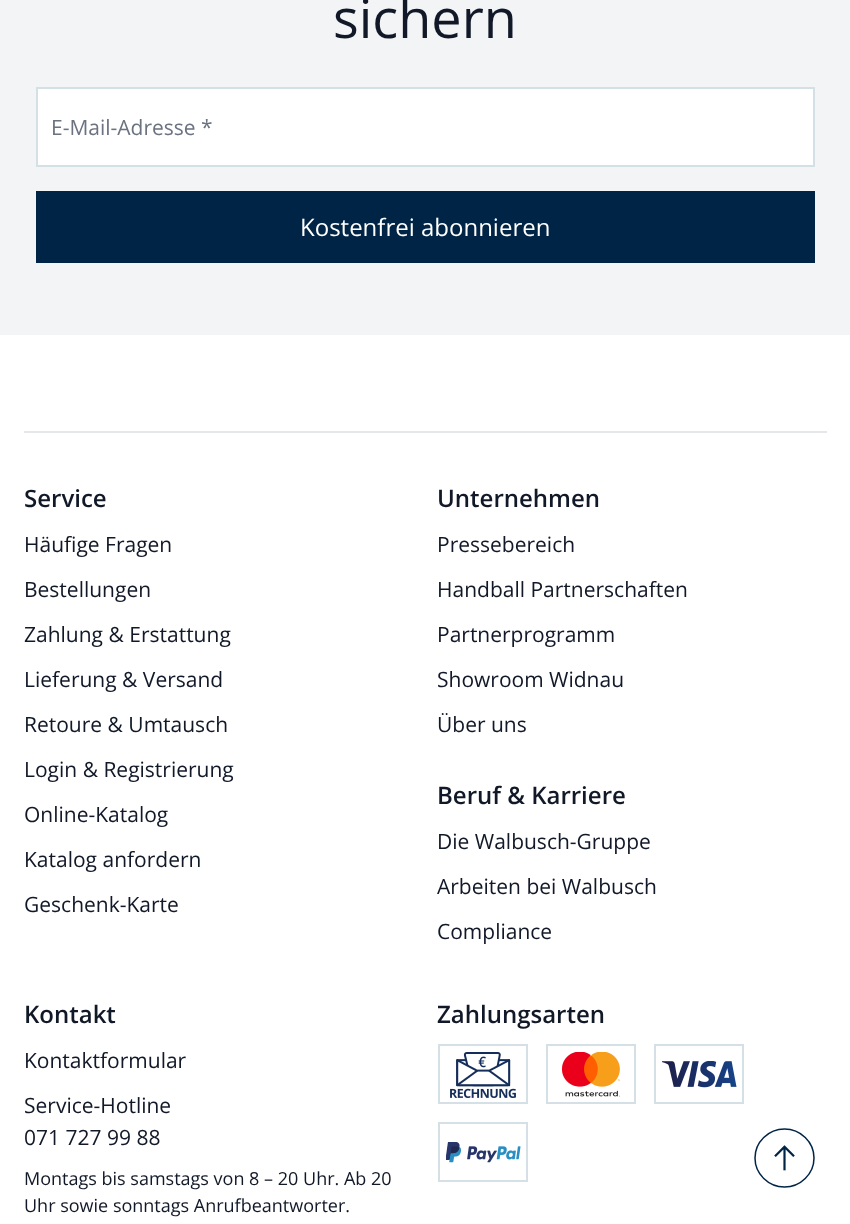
<svg xmlns="http://www.w3.org/2000/svg" width="850" height="1224">
<rect width="100%" height="100%" fill="#fff"/>
<rect width="850" height="335" fill="#f3f4f6"/>
<text x="333" y="38" style="font-family:Open Sans;font-size:54px;fill:#111827">sichern</text>
<rect x="37" y="88" width="777" height="78" fill="#fff" stroke="#d5dfe6" stroke-width="2"/>
<text x="51" y="135" style="font-family:Open Sans;font-size:21px;fill:#6b7280">E-Mail-Adresse *</text>
<rect x="36" y="191" width="779" height="72" fill="#002446"/>
<text x="300" y="236" style="font-family:Open Sans;font-size:24px;fill:#fff">Kostenfrei abonnieren</text>
<rect x="24" y="431" width="803" height="2" fill="#e5e7eb"/>
<text x="24" y="507" style="font-family:Open Sans;font-size:24px;font-weight:600;fill:#111827">Service</text>
<text x="24" y="552" style="font-family:Open Sans;font-size:21px;fill:#111827">Häufige Fragen</text>
<text x="24" y="597" style="font-family:Open Sans;font-size:21px;fill:#111827">Bestellungen</text>
<text x="24" y="642" style="font-family:Open Sans;font-size:21px;fill:#111827">Zahlung &amp; Erstattung</text>
<text x="24" y="687" style="font-family:Open Sans;font-size:21px;fill:#111827">Lieferung &amp; Versand</text>
<text x="24" y="732" style="font-family:Open Sans;font-size:21px;fill:#111827">Retoure &amp; Umtausch</text>
<text x="24" y="777" style="font-family:Open Sans;font-size:21px;fill:#111827">Login &amp; Registrierung</text>
<text x="24" y="822" style="font-family:Open Sans;font-size:21px;fill:#111827">Online-Katalog</text>
<text x="24" y="867" style="font-family:Open Sans;font-size:21px;fill:#111827">Katalog anfordern</text>
<text x="24" y="912" style="font-family:Open Sans;font-size:21px;fill:#111827">Geschenk-Karte</text>
<text x="437" y="507" style="font-family:Open Sans;font-size:24px;font-weight:600;fill:#111827">Unternehmen</text>
<text x="437" y="552" style="font-family:Open Sans;font-size:21px;fill:#111827">Pressebereich</text>
<text x="437" y="597" style="font-family:Open Sans;font-size:21px;fill:#111827">Handball Partnerschaften</text>
<text x="437" y="642" style="font-family:Open Sans;font-size:21px;fill:#111827">Partnerprogramm</text>
<text x="437" y="687" style="font-family:Open Sans;font-size:21px;fill:#111827">Showroom Widnau</text>
<text x="437" y="732" style="font-family:Open Sans;font-size:21px;fill:#111827">Über uns</text>
<text x="437" y="804" style="font-family:Open Sans;font-size:24px;font-weight:600;fill:#111827">Beruf &amp; Karriere</text>
<text x="437" y="849" style="font-family:Open Sans;font-size:21px;fill:#111827">Die Walbusch-Gruppe</text>
<text x="437" y="894" style="font-family:Open Sans;font-size:21px;fill:#111827">Arbeiten bei Walbusch</text>
<text x="437" y="939" style="font-family:Open Sans;font-size:21px;fill:#111827">Compliance</text>
<text x="24" y="1023" style="font-family:Open Sans;font-size:24px;font-weight:600;fill:#111827">Kontakt</text>
<text x="24" y="1068" style="font-family:Open Sans;font-size:21px;fill:#111827">Kontaktformular</text>
<text x="24" y="1113" style="font-family:Open Sans;font-size:21px;fill:#111827">Service-Hotline</text>
<text x="24" y="1145" style="font-family:Open Sans;font-size:21px;fill:#111827">071 727 99 88</text>
<text x="24" y="1185" style="font-family:Open Sans;font-size:18px;fill:#111827">Montags bis samstags von 8 – 20 Uhr. Ab 20</text>
<text x="24" y="1212" style="font-family:Open Sans;font-size:18px;fill:#111827">Uhr sowie sonntags Anrufbeantworter.</text>
<text x="437" y="1023" style="font-family:Open Sans;font-size:24px;font-weight:600;fill:#111827">Zahlungsarten</text>
<rect x="439" y="1045" width="88" height="58" fill="none" stroke="#d5dfe6" stroke-width="2"/>
<image x="450" y="1052" width="66" height="46" href="media/1.png"/>
<rect x="547" y="1045" width="88" height="58" fill="none" stroke="#d5dfe6" stroke-width="2"/>
<image x="561" y="1052" width="59" height="45" href="media/2.png"/>
<rect x="655" y="1045" width="88" height="58" fill="none" stroke="#d5dfe6" stroke-width="2"/>
<image x="662" y="1061" width="75" height="27" href="media/3.png"/>
<rect x="439" y="1123" width="88" height="58" fill="none" stroke="#d5dfe6" stroke-width="2"/>
<image x="446" y="1142" width="75" height="21" href="media/4.png"/>
<path d="M814 1158c0 16-13.5 29-29.5 29c-16 0-29.5-13-29.5-29c0-16 13.5-29 29.5-29c16 0 29.5 13 29.5 29z" fill="none" stroke="#002446" stroke-width="1.5"/>
<image x="774" y="1145" width="21" height="26" href="media/5.png"/>
</svg>
